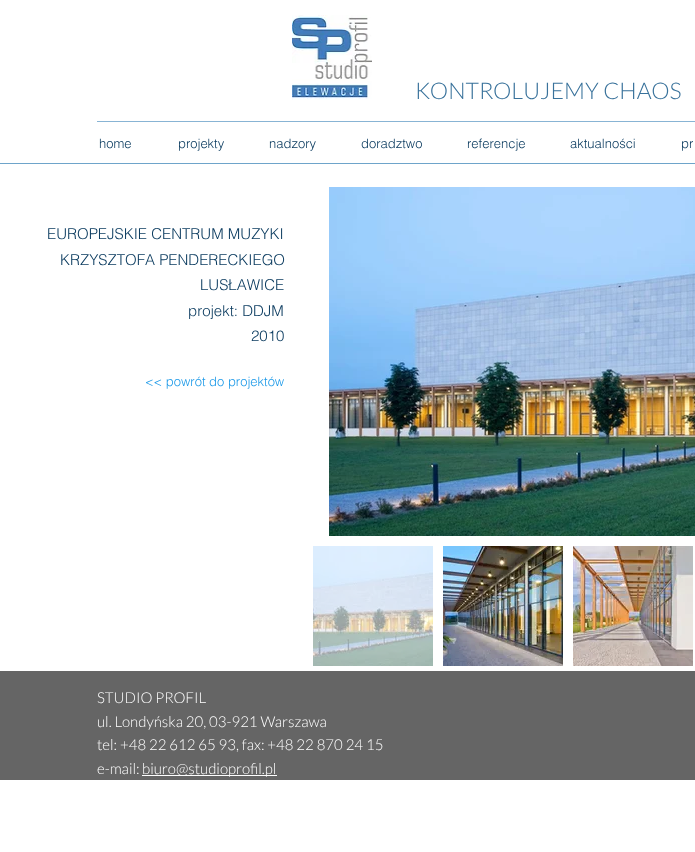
<svg xmlns="http://www.w3.org/2000/svg" width="695" height="852">
<rect width="100%" height="100%" fill="#fff"/>
<image x="292" y="15" width="80" height="85" href="media/1.png"/>
<text x="415" y="99" style="font-family:Lato;font-size:23px;font-weight:300;fill:#39729b">KONTROLUJEMY CHAOS</text>
<rect x="97" y="121" width="598" height="1" fill="#88b4d4"/>
<text x="99" y="148" style="font-family:helvetica;font-size:13px;font-weight:300;fill:#0c3c60">home</text>
<text x="178" y="148" style="font-family:helvetica;font-size:13px;font-weight:300;fill:#0c3c60">projekty</text>
<text x="269" y="148" style="font-family:helvetica;font-size:13px;font-weight:300;fill:#0c3c60">nadzory</text>
<text x="361" y="148" style="font-family:helvetica;font-size:13px;font-weight:300;fill:#0c3c60">doradztwo</text>
<text x="467" y="148" style="font-family:helvetica;font-size:13px;font-weight:300;fill:#0c3c60">referencje</text>
<text x="570" y="148" style="font-family:helvetica;font-size:13px;font-weight:300;fill:#0c3c60">aktualności</text>
<text x="681" y="148" style="font-family:helvetica;font-size:13px;font-weight:300;fill:#0c3c60">pr</text>
<rect y="163" width="695" height="1" fill="#6ea4ca"/>
<text x="47" y="239" style="font-family:helvetica;font-size:15px;font-weight:300;fill:#0c3c60">EUROPEJSKIE CENTRUM MUZYKI</text>
<text x="60" y="265" style="font-family:helvetica;font-size:15px;font-weight:300;fill:#0c3c60">KRZYSZTOFA PENDERECKIEGO</text>
<text x="200" y="290" style="font-family:helvetica;font-size:15px;font-weight:300;fill:#0c3c60">LUSŁAWICE</text>
<text x="188" y="316" style="font-family:helvetica;font-size:15px;font-weight:300;fill:#0c3c60">projekt: DDJM</text>
<text x="251" y="341" style="font-family:helvetica;font-size:15px;font-weight:300;fill:#0c3c60">2010</text>
<image x="329" y="187" width="366" height="349" href="media/2.png"/>
<image x="313" y="546" width="120" height="120" href="media/3.png"/>
<image x="443" y="546" width="120" height="120" href="media/4.png"/>
<image x="573" y="546" width="120" height="120" href="media/5.png"/>
<text x="145" y="386" style="font-family:helvetica;font-size:13px;font-weight:300;fill:#1b99e8">&lt;&lt; powrót do projektów</text>
<rect y="671" width="695" height="109" fill="#656565"/>
<text x="97" y="703" style="font-family:Lato;font-size:15px;font-weight:300;fill:#fff">STUDIO PROFIL</text>
<text x="97" y="727" style="font-family:Lato;font-size:15px;font-weight:300;fill:#fff">ul. Londyńska 20, 03-921 Warszawa</text>
<text x="97" y="750" style="font-family:Lato;font-size:15px;font-weight:300;fill:#fff">tel: +48 22 612 65 93, fax: +48 22 870 24 15</text>
<text x="97" y="774" style="font-family:Lato;font-size:15px;font-weight:300;fill:#fff">e-mail:</text>
<rect x="142" y="775" width="135" height="1" fill="#fff"/>
<text x="142" y="774" style="font-family:Lato;font-size:15px;font-weight:300;fill:#fff">biuro@studioprofil.pl</text>
</svg>
